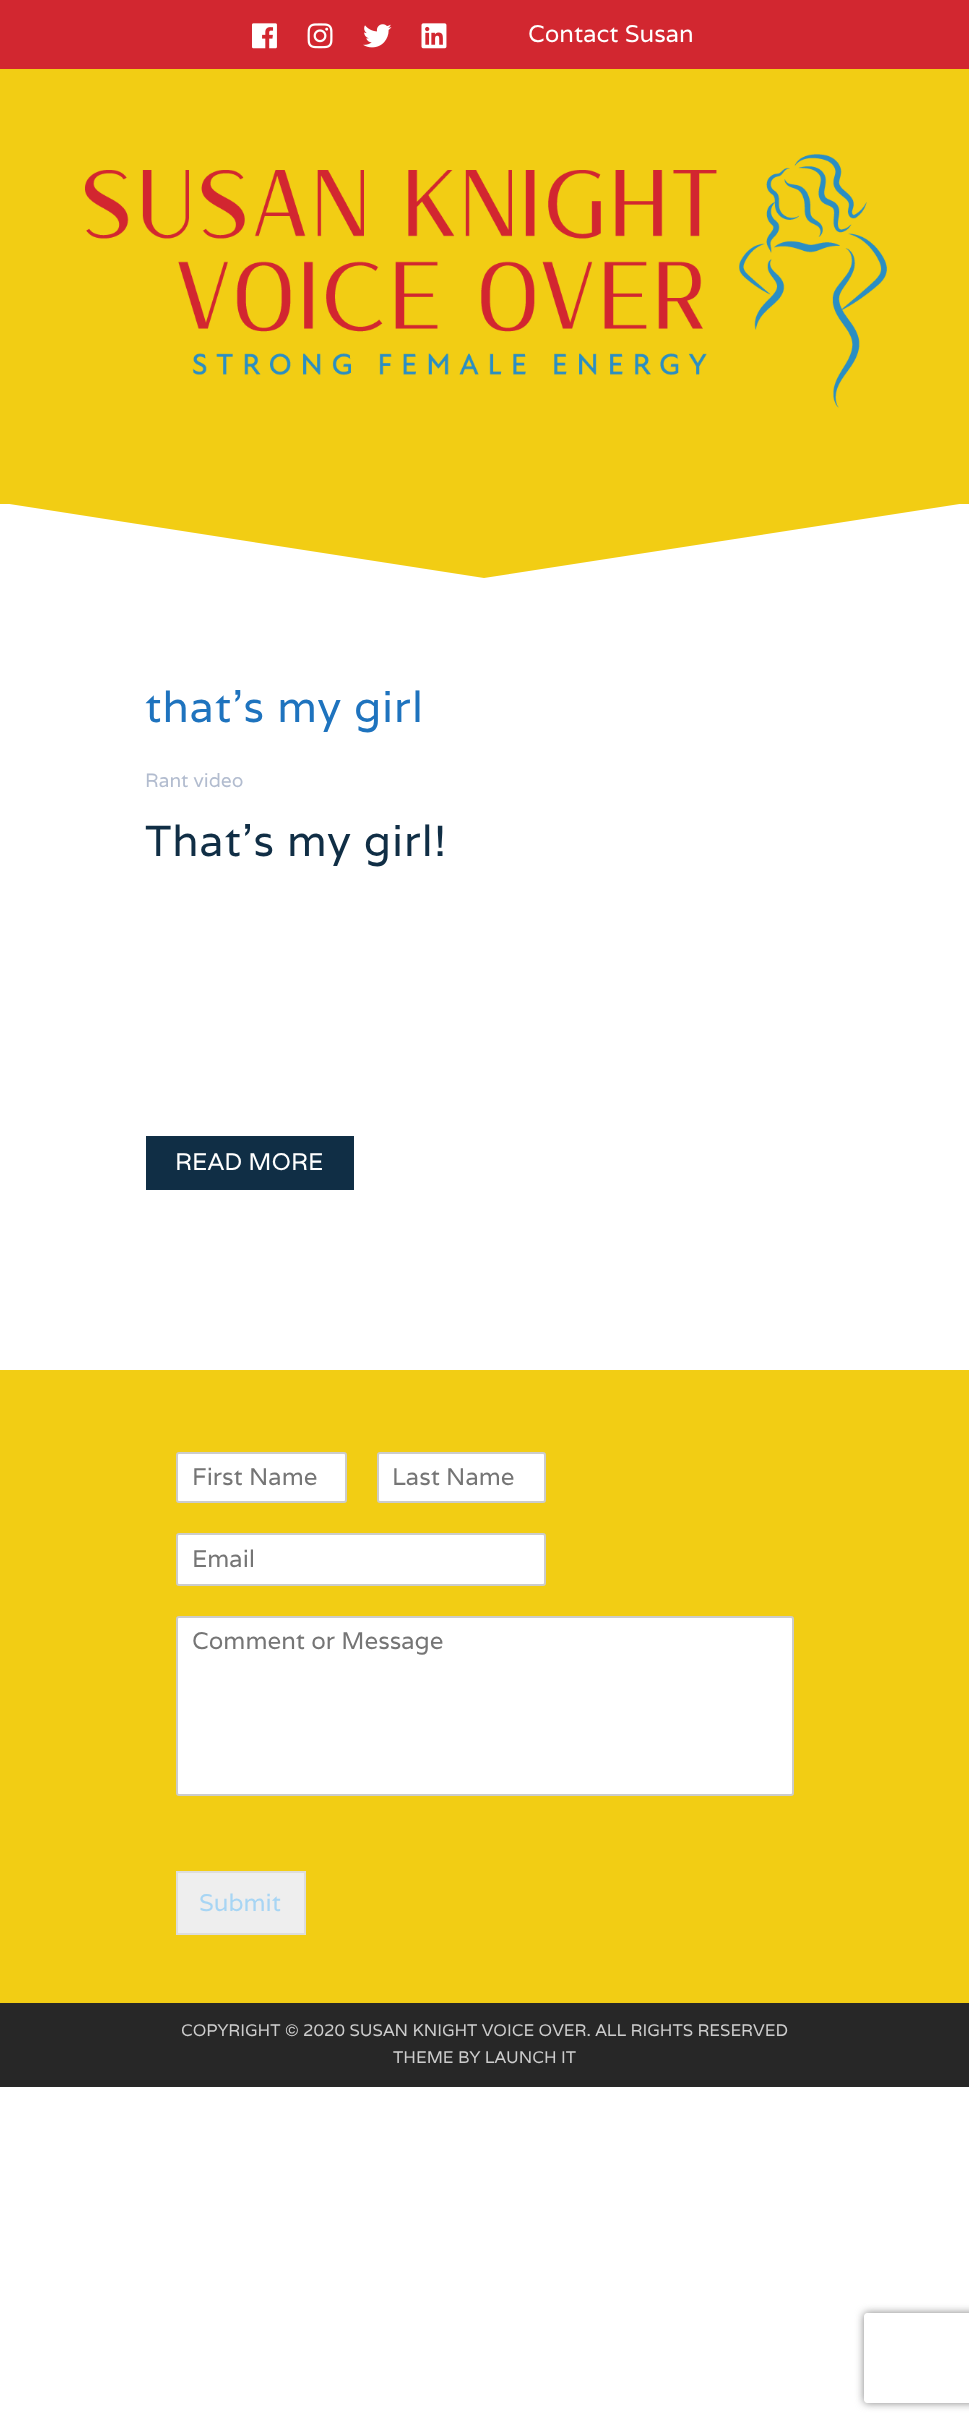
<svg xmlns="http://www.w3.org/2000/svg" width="969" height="2424">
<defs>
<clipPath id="clip1"><path d="M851 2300h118v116h-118zm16 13h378c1.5 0 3 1.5 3 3v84c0 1.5-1.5 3-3 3h-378c-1.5 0-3-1.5-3-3v-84c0-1.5 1.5-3 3-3z" clip-rule="evenodd"/></clipPath>
</defs>
<rect width="100%" height="100%" fill="#fff"/>
<rect width="969" height="69" fill="#d22730"/>
<image x="252" y="23" width="25" height="26" href="media/1.png"/>
<image x="307" y="23" width="26" height="26" href="media/2.png"/>
<image x="363" y="24" width="29" height="24" href="media/3.png"/>
<image x="421" y="23" width="26" height="26" href="media/4.png"/>
<text x="528" y="42" style="font-family:Varela;font-size:24px;fill:#fff">Contact Susan</text>
<path d="M966 503l-482 75l-481-75z" fill="#f2cd14"/>
<rect y="69" width="969" height="435" fill="#f2cd14"/>
<image x="85" y="154" width="802" height="254" href="media/5.png"/>
<text x="145" y="722" style="font-family:Varela;font-size:43.25px;letter-spacing:0.9px;fill:#1e73be">that’s my girl</text>
<text x="145" y="787" style="font-family:Varela;font-size:19.25px;fill:#b2bccf">Rant video</text>
<text x="145" y="856" style="font-family:Varela;font-size:43.25px;letter-spacing:0.9px;fill:#102e45">That’s my girl!</text>
<rect x="146" y="1136" width="208" height="54" fill="#102e45"/>
<text x="175" y="1170" style="font-family:Varela;font-size:24px;fill:#fff">READ MORE</text>
<rect y="1370" width="969" height="633" fill="#f2cd14"/>
<rect x="177" y="1453" width="169" height="49" rx="2" fill="#fff" stroke="#ccc" stroke-width="2"/>
<text x="192" y="1485" style="font-family:Varela;font-size:24px;fill:#757575">First Name</text>
<rect x="378" y="1453" width="167" height="49" rx="2" fill="#fff" stroke="#ccc" stroke-width="2"/>
<text x="392" y="1485" style="font-family:Varela;font-size:24px;fill:#757575">Last Name</text>
<rect x="177" y="1534" width="368" height="51" rx="2" fill="#fff" stroke="#ccc" stroke-width="2"/>
<text x="192" y="1567" style="font-family:Varela;font-size:24px;fill:#757575">Email</text>
<rect x="177" y="1617" width="616" height="178" rx="2" fill="#fff" stroke="#ccc" stroke-width="2"/>
<text x="192" y="1649" style="font-family:Varela;font-size:24px;fill:#757575">Comment or Message</text>
<rect x="177" y="1872" width="128" height="62" fill="#eee" stroke="#ddd" stroke-width="2"/>
<text x="199" y="1911" style="font-family:Varela;font-size:24px;fill:#a7d5f4">Submit</text>
<g clip-path="url(#clip1)">
<rect x="864" y="2313" width="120" height="90" rx="3" fill="#808080" filter="blur(4px)"/>
</g>
<rect y="2003" width="969" height="84" fill="#272727"/>
<text x="181" y="2036" style="font-family:Varela;font-size:16.8px;fill:#cdcdcd">COPYRIGHT © 2020 SUSAN KNIGHT VOICE OVER. ALL RIGHTS RESERVED</text>
<text x="393" y="2063" style="font-family:Varela;font-size:16.8px;fill:#cdcdcd">THEME BY LAUNCH IT</text>
</svg>
